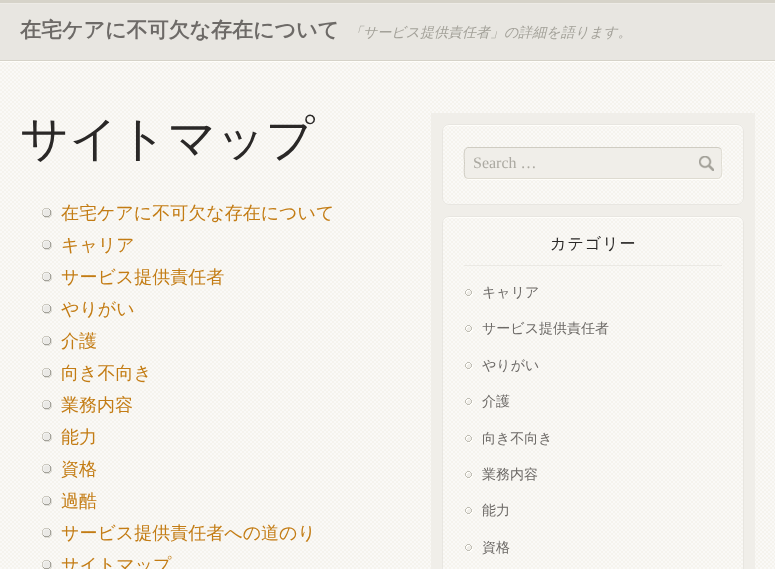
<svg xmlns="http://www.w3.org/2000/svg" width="775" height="569">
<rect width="100%" height="100%" fill="#e8e6e1"/>
<rect y="3" width="775" height="1" fill="#edebe6"/>
<rect width="775" height="3" fill="#d6d3c9"/>
<text x="20" y="37" style="font-family:WenQuanYi Zen Hei;font-size:21px;font-weight:bold;fill:#6d6a67">在宅ケアに不可欠な存在について</text>
<text x="349" y="37" style="font-family:WenQuanYi Zen Hei;font-size:14px;font-weight:500;font-style:italic;fill:#a3a199">「サービス提供責任者」の詳細を語ります。</text>
<image x="0" y="62" width="775" height="507" href="media/1.png"/>
<rect y="61" width="775" height="1" fill="#fffefa"/>
<rect y="60" width="775" height="1" fill="#d6d3c9"/>
<text x="20" y="155" style="font-family:WenQuanYi Zen Hei;font-size:48px;font-weight:500;fill:#2a2827">サイトマップ</text>
<image x="42" y="208" width="10" height="10" href="media/2.png"/>
<text x="61" y="219" style="font-family:WenQuanYi Zen Hei;font-size:18px;font-weight:500;fill:#c37c14">在宅ケアに不可欠な存在について</text>
<image x="42" y="240" width="10" height="10" href="media/2.png"/>
<text x="61" y="251" style="font-family:WenQuanYi Zen Hei;font-size:18px;font-weight:500;fill:#c37c14">キャリア</text>
<image x="42" y="272" width="10" height="10" href="media/2.png"/>
<text x="61" y="283" style="font-family:WenQuanYi Zen Hei;font-size:18px;font-weight:500;fill:#c37c14">サービス提供責任者</text>
<image x="42" y="304" width="10" height="10" href="media/2.png"/>
<text x="61" y="315" style="font-family:WenQuanYi Zen Hei;font-size:18px;font-weight:500;fill:#c37c14">やりがい</text>
<image x="42" y="336" width="10" height="10" href="media/2.png"/>
<text x="61" y="347" style="font-family:WenQuanYi Zen Hei;font-size:18px;font-weight:500;fill:#c37c14">介護</text>
<image x="42" y="368" width="10" height="10" href="media/2.png"/>
<text x="61" y="379" style="font-family:WenQuanYi Zen Hei;font-size:18px;font-weight:500;fill:#c37c14">向き不向き</text>
<image x="42" y="400" width="10" height="10" href="media/2.png"/>
<text x="61" y="411" style="font-family:WenQuanYi Zen Hei;font-size:18px;font-weight:500;fill:#c37c14">業務内容</text>
<image x="42" y="432" width="10" height="10" href="media/2.png"/>
<text x="61" y="443" style="font-family:WenQuanYi Zen Hei;font-size:18px;font-weight:500;fill:#c37c14">能力</text>
<image x="42" y="464" width="10" height="10" href="media/2.png"/>
<text x="61" y="475" style="font-family:WenQuanYi Zen Hei;font-size:18px;font-weight:500;fill:#c37c14">資格</text>
<image x="42" y="496" width="10" height="10" href="media/2.png"/>
<text x="61" y="507" style="font-family:WenQuanYi Zen Hei;font-size:18px;font-weight:500;fill:#c37c14">過酷</text>
<image x="42" y="528" width="10" height="10" href="media/2.png"/>
<text x="61" y="539" style="font-family:WenQuanYi Zen Hei;font-size:18px;font-weight:500;fill:#c37c14">サービス提供責任者への道のり</text>
<image x="42" y="560" width="10" height="9" href="media/3.png"/>
<text x="61" y="571" style="font-family:WenQuanYi Zen Hei;font-size:18px;font-weight:500;fill:#c37c14">サイトマップ</text>
<rect x="431" y="113" width="324" height="456" fill="#f0eee9"/>
<image x="442" y="124" width="302" height="81" href="media/4.png"/>
<path d="M449 126h288c3 0 6 3 6 6c0-4-2-7-6-7h-288c-4 0-6 3-6 7c0-3 3-6 6-6z" fill="#fffefa"/>
<rect x="442.5" y="124.5" width="301" height="80" rx="6.5" fill="none" stroke="#e8e6e1"/>
<path d="M466 178c0 1 2 2 3 2h250c2 0 4-2 4-4v-24c0-1-1-3-2-3l1 2v24c0 2-2 4-4 4h-250z" fill="#fffefa"/>
<rect x="464" y="147" width="258" height="32" rx="4" fill="#f0eee9"/>
<path d="M720.5 148.5c2 2.5 1 11.5 1 14.5c0 3 1.5 12.5-1.5 14.5l-1.5 1h-250.5l-2.5-1" fill="none" stroke="#dedbd1"/>
<path d="M465.5 177.5c-2-2.5-1-11.5-1-14.5c0-3-1.5-12.5 1.5-14.5l1.5-1h250.5l2.5 1" fill="none" stroke="#cfccc2"/>
<text x="473" y="168" style="font-family:Liberation Serif;font-size:16px;fill:#aba9a1">Search …</text>
<image x="699" y="156" width="15" height="15" href="media/5.png"/>
<image x="442" y="216" width="302" height="353" href="media/6.png"/>
<path d="M449 218h288c3 0 6 3 6 6c0-4-2-7-6-7h-288c-4 0-6 3-6 7c0-3 3-6 6-6z" fill="#fffefa"/>
<rect x="442.5" y="216.5" width="301" height="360" rx="6.5" fill="none" stroke="#e8e6e1"/>
<rect x="464" y="265" width="258" height="1" fill="#ebe9e4"/>
<text x="550" y="249" style="font-family:WenQuanYi Zen Hei;font-size:16px;font-weight:500;letter-spacing:1px;fill:#2a2827">カテゴリー</text>
<image x="465" y="289" width="8" height="8" href="media/7.png"/>
<text x="482" y="297" style="font-family:WenQuanYi Zen Hei;font-size:14px;font-weight:500;fill:#6d6a67">キャリア</text>
<image x="465" y="325" width="8" height="8" href="media/7.png"/>
<text x="482" y="333" style="font-family:WenQuanYi Zen Hei;font-size:14px;font-weight:500;fill:#6d6a67">サービス提供責任者</text>
<image x="465" y="362" width="8" height="8" href="media/8.png"/>
<text x="482" y="370" style="font-family:WenQuanYi Zen Hei;font-size:14px;font-weight:500;fill:#6d6a67">やりがい</text>
<image x="465" y="398" width="8" height="8" href="media/8.png"/>
<text x="482" y="406" style="font-family:WenQuanYi Zen Hei;font-size:14px;font-weight:500;fill:#6d6a67">介護</text>
<image x="465" y="435" width="8" height="8" href="media/9.png"/>
<text x="482" y="443" style="font-family:WenQuanYi Zen Hei;font-size:14px;font-weight:500;fill:#6d6a67">向き不向き</text>
<image x="465" y="471" width="8" height="8" href="media/9.png"/>
<text x="482" y="479" style="font-family:WenQuanYi Zen Hei;font-size:14px;font-weight:500;fill:#6d6a67">業務内容</text>
<image x="465" y="507" width="8" height="8" href="media/9.png"/>
<text x="482" y="515" style="font-family:WenQuanYi Zen Hei;font-size:14px;font-weight:500;fill:#6d6a67">能力</text>
<image x="465" y="544" width="8" height="8" href="media/10.png"/>
<text x="482" y="552" style="font-family:WenQuanYi Zen Hei;font-size:14px;font-weight:500;fill:#6d6a67">資格</text>
</svg>
